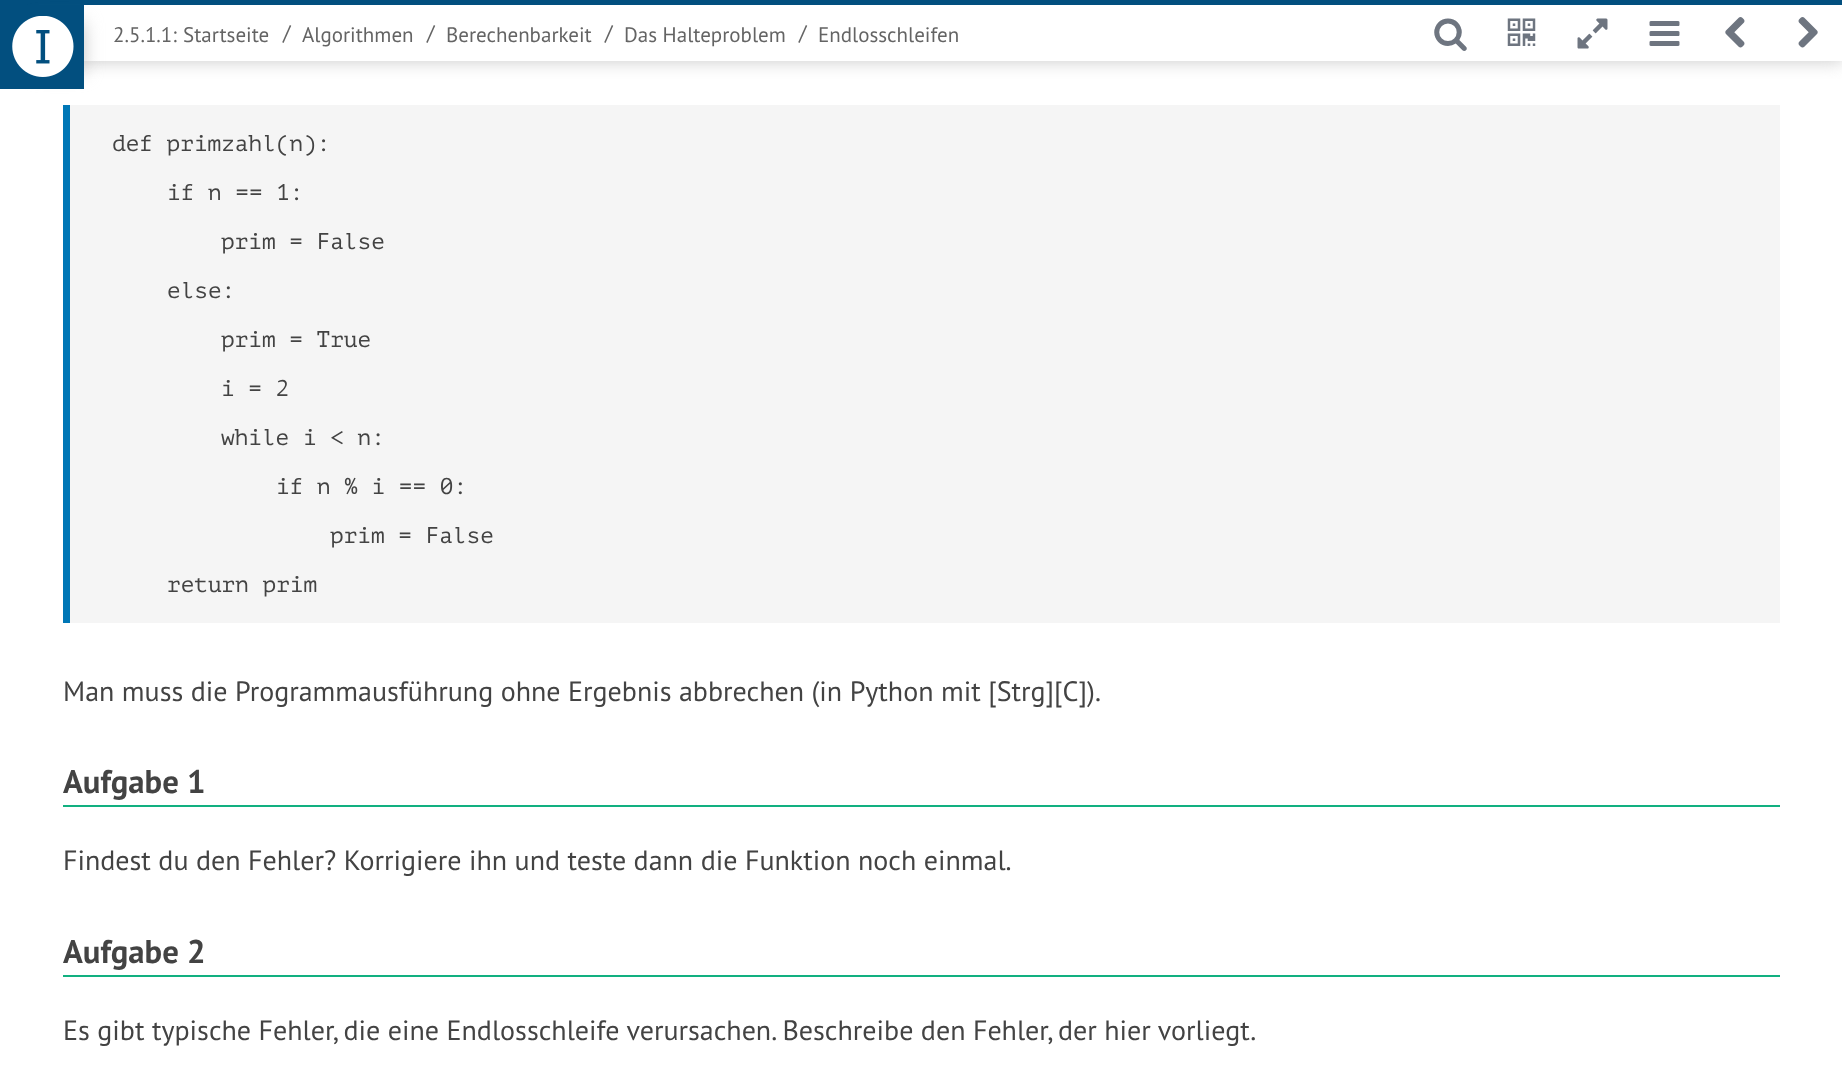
<svg xmlns="http://www.w3.org/2000/svg" width="1842" height="1083">
<defs>
<clipPath id="clip1"><rect x="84" y="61" width="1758" height="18"/></clipPath>
</defs>
<rect width="100%" height="100%" fill="#fff"/>
<g clip-path="url(#clip1)">
<rect width="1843" height="61" fill="#c8c8c8" filter="blur(9px)"/>
</g>
<rect width="1842" height="5" fill="#024f7f"/>
<rect x="35" y="23" width="49" height="49" fill="#c8c8c8" filter="blur(9px)"/>
<rect y="5" width="84" height="84" fill="#024f7f"/>
<image x="12" y="16" width="62" height="61" href="media/1.png"/>
<text x="113" y="42" style="font-family:PT Sans;font-size:21px;fill:#646464">2.5.1.1:</text>
<text x="183" y="42" style="font-family:PT Sans;font-size:21px;fill:#646464">Startseite</text>
<text x="283" y="40" style="font-family:PT Sans;font-size:21px;fill:#646464">/</text>
<text x="302" y="42" style="font-family:PT Sans;font-size:21px;fill:#646464">Algorithmen</text>
<text x="427" y="40" style="font-family:PT Sans;font-size:21px;fill:#646464">/</text>
<text x="446" y="42" style="font-family:PT Sans;font-size:21px;fill:#646464">Berechenbarkeit</text>
<text x="605" y="40" style="font-family:PT Sans;font-size:21px;fill:#646464">/</text>
<text x="624" y="42" style="font-family:PT Sans;font-size:21px;fill:#646464">Das Halteproblem</text>
<text x="799" y="40" style="font-family:PT Sans;font-size:21px;fill:#646464">/</text>
<text x="818" y="42" style="font-family:PT Sans;font-size:21px;fill:#646464">Endlosschleifen</text>
<text x="1433" y="51" style="font-family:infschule;font-size:35px;fill:#6e7580">s</text>
<text x="1504" y="51" style="font-family:infschule;font-size:35px;fill:#6e7580">n</text>
<text x="1575" y="51" style="font-family:infschule;font-size:35px;fill:#6e7580">h</text>
<text x="1647" y="51" style="font-family:infschule;font-size:35px;fill:#6e7580">m</text>
<text x="1718" y="51" style="font-family:infschule;font-size:35px;fill:#6e7580">r</text>
<text x="1790" y="51" style="font-family:infschule;font-size:35px;fill:#6e7580">u</text>
<rect x="70" y="105" width="1710" height="518" fill="#f5f5f5"/>
<rect x="63" y="105" width="7" height="518" fill="#0077b6"/>
<text x="112" y="151" style="font-family:PT Mono;font-size:22.75px;fill:#434343">def primzahl(n):</text>
<text x="167" y="200" style="font-family:PT Mono;font-size:22.75px;fill:#434343">if n == 1:</text>
<text x="221" y="249" style="font-family:PT Mono;font-size:22.75px;fill:#434343">prim = False</text>
<text x="167" y="298" style="font-family:PT Mono;font-size:22.75px;fill:#434343">else:</text>
<text x="221" y="347" style="font-family:PT Mono;font-size:22.75px;fill:#434343">prim = True</text>
<text x="221" y="396" style="font-family:PT Mono;font-size:22.75px;fill:#434343">i = 2</text>
<text x="221" y="445" style="font-family:PT Mono;font-size:22.75px;fill:#434343">while i &lt; n:</text>
<text x="276" y="494" style="font-family:PT Mono;font-size:22.75px;fill:#434343">if n % i == 0:</text>
<text x="330" y="543" style="font-family:PT Mono;font-size:22.75px;fill:#434343">prim = False</text>
<text x="167" y="592" style="font-family:PT Mono;font-size:22.75px;fill:#434343">return prim</text>
<text x="63" y="701" style="font-family:PT Sans;font-size:28px;fill:#434343">Man muss die Programmausführung ohne Ergebnis abbrechen (in Python mit [Strg][C]).</text>
<rect x="63" y="805" width="1717" height="2" fill="#12b080"/>
<text x="63" y="793" style="font-family:PT Sans;font-size:32.75px;font-weight:bold;fill:#434343">Aufgabe 1</text>
<text x="63" y="870" style="font-family:PT Sans;font-size:28px;fill:#434343">Findest du den Fehler? Korrigiere ihn und teste dann die Funktion noch einmal.</text>
<rect x="63" y="975" width="1717" height="2" fill="#12b080"/>
<text x="63" y="963" style="font-family:PT Sans;font-size:32.75px;font-weight:bold;fill:#434343">Aufgabe 2</text>
<text x="63" y="1040" style="font-family:PT Sans;font-size:28px;fill:#434343">Es gibt typische Fehler, die eine Endlosschleife verursachen. Beschreibe den Fehler, der hier vorliegt.</text>
</svg>
